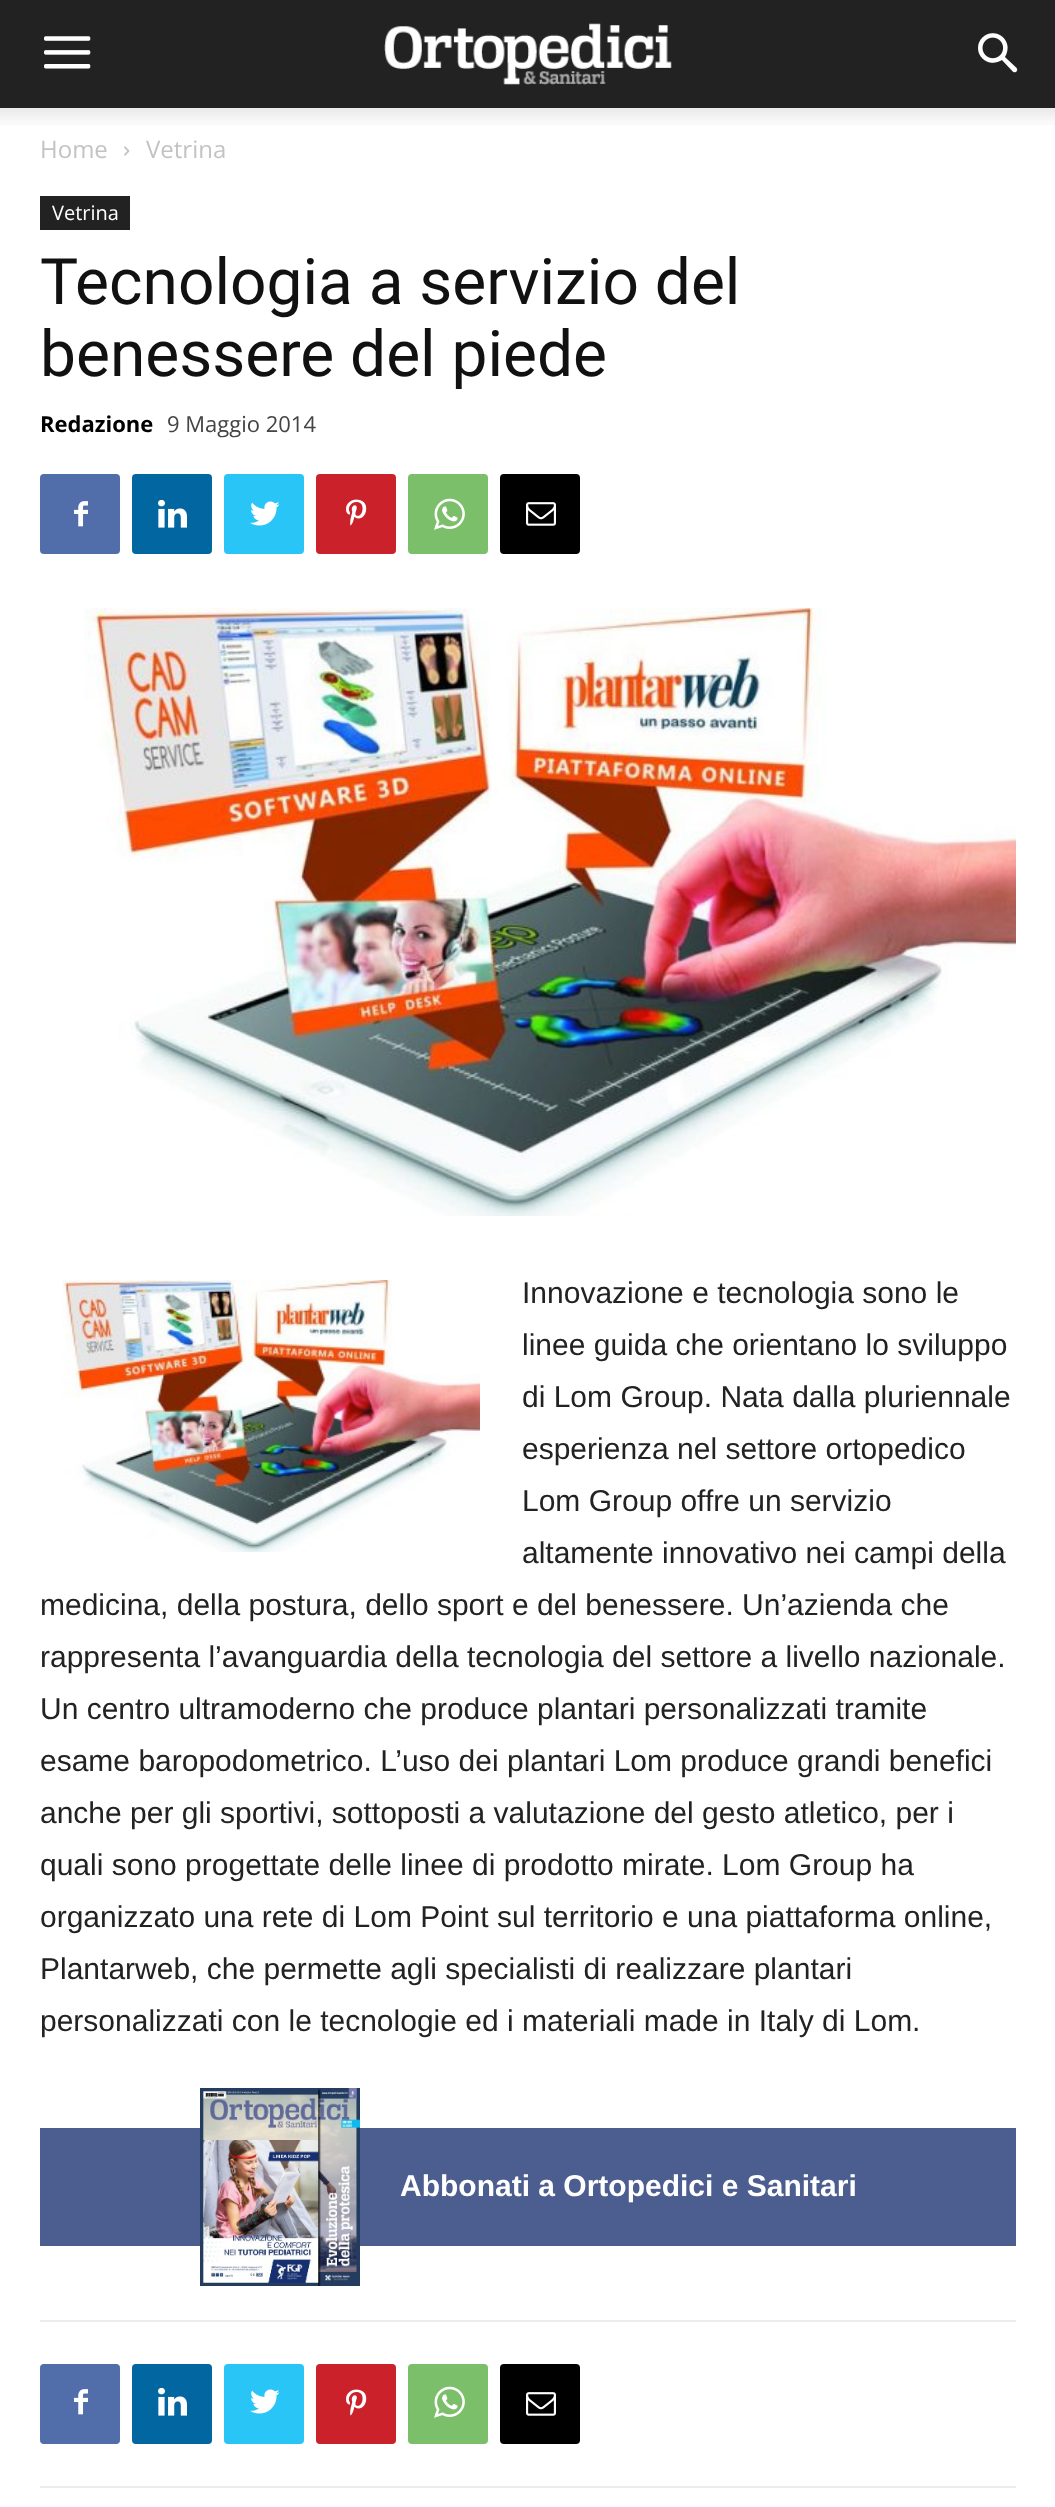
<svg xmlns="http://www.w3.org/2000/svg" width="1055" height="2507">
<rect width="100%" height="100%" fill="#fff"/>
<rect width="1055" height="108" fill="#222"/>
<image x="44" y="36" width="47" height="33" href="media/1.png"/>
<image x="384" y="23" width="288" height="62" href="media/2.png"/>
<image x="978" y="33" width="40" height="40" href="media/3.png"/>
<image x="0" y="108" width="1055" height="17" href="media/4.png"/>
<text x="40" y="158" style="font-family:Open Sans;font-size:24px;fill:#c3c3c3">Home</text>
<image x="124" y="146" width="6" height="10" href="media/5.png"/>
<text x="146" y="158" style="font-family:Open Sans;font-size:24px;fill:#c3c3c3">Vetrina</text>
<rect x="40" y="196" width="90" height="34" fill="#222"/>
<text x="52" y="220" style="font-family:Open Sans;font-size:20px;fill:#fff">Vetrina</text>
<text x="40" y="304" style="font-family:Roboto;font-size:64px;fill:#111">Tecnologia a servizio del</text>
<text x="40" y="376" style="font-family:Roboto;font-size:64px;fill:#111">benessere del piede</text>
<text x="40" y="432" style="font-family:Open Sans;font-size:22px;font-weight:bold;fill:#000">Redazione</text>
<text x="167" y="432" style="font-family:Open Sans;font-size:22px;fill:#444">9 Maggio 2014</text>
<rect x="40" y="474" width="80" height="80" rx="4" fill="#516eab"/>
<image x="74" y="501" width="14" height="26" href="media/6.png"/>
<rect x="132" y="474" width="80" height="80" rx="4" fill="#0266a0"/>
<image x="158" y="499" width="29" height="29" href="media/7.png"/>
<rect x="224" y="474" width="80" height="80" rx="4" fill="#29c5f6"/>
<image x="250" y="501" width="30" height="25" href="media/8.png"/>
<rect x="316" y="474" width="80" height="80" rx="4" fill="#ca212a"/>
<image x="346" y="499" width="21" height="27" href="media/9.png"/>
<rect x="408" y="474" width="80" height="80" rx="4" fill="#7bbf6a"/>
<image x="434" y="498" width="31" height="32" href="media/10.png"/>
<rect x="500" y="474" width="80" height="80" rx="4" fill="#000"/>
<image x="526" y="502" width="30" height="24" href="media/11.png"/>
<image x="84" y="608" width="932" height="608" href="media/12.png"/>
<image x="62" y="1280" width="418" height="272" href="media/13.png"/>
<text x="522" y="1303" style="font-family:Liberation Sans;font-size:30px;fill:#222">Innovazione e tecnologia sono le</text>
<text x="522" y="1355" style="font-family:Liberation Sans;font-size:30px;fill:#222">linee guida che orientano lo sviluppo</text>
<text x="522" y="1407" style="font-family:Liberation Sans;font-size:30px;fill:#222">di Lom Group. Nata dalla pluriennale</text>
<text x="522" y="1459" style="font-family:Liberation Sans;font-size:30px;fill:#222">esperienza nel settore ortopedico</text>
<text x="522" y="1511" style="font-family:Liberation Sans;font-size:30px;fill:#222">Lom Group offre un servizio</text>
<text x="522" y="1563" style="font-family:Liberation Sans;font-size:30px;fill:#222">altamente innovativo nei campi della</text>
<text x="40" y="1615" style="font-family:Liberation Sans;font-size:30px;fill:#222">medicina, della postura, dello sport e del benessere. Un’azienda che</text>
<text x="40" y="1667" style="font-family:Liberation Sans;font-size:30px;fill:#222">rappresenta l’avanguardia della tecnologia del settore a livello nazionale.</text>
<text x="40" y="1719" style="font-family:Liberation Sans;font-size:30px;fill:#222">Un centro ultramoderno che produce plantari personalizzati tramite</text>
<text x="40" y="1771" style="font-family:Liberation Sans;font-size:30px;fill:#222">esame baropodometrico. L’uso dei plantari Lom produce grandi benefici</text>
<text x="40" y="1823" style="font-family:Liberation Sans;font-size:30px;fill:#222">anche per gli sportivi, sottoposti a valutazione del gesto atletico, per i</text>
<text x="40" y="1875" style="font-family:Liberation Sans;font-size:30px;fill:#222">quali sono progettate delle linee di prodotto mirate. Lom Group ha</text>
<text x="40" y="1927" style="font-family:Liberation Sans;font-size:30px;fill:#222">organizzato una rete di Lom Point sul territorio e una piattaforma online,</text>
<text x="40" y="1979" style="font-family:Liberation Sans;font-size:30px;fill:#222">Plantarweb, che permette agli specialisti di realizzare plantari</text>
<text x="40" y="2031" style="font-family:Liberation Sans;font-size:30px;fill:#222">personalizzati con le tecnologie ed i materiali made in Italy di Lom.</text>
<rect x="40" y="2128" width="976" height="118" fill="#4c5d90"/>
<image x="200" y="2088" width="160" height="198" href="media/14.png"/>
<text x="400" y="2196" style="font-family:Liberation Sans;font-size:30px;font-weight:bold;fill:#fff">Abbonati a Ortopedici e Sanitari</text>
<rect x="40" y="2320" width="976" height="2" fill="#ededed"/>
<rect x="40" y="2486" width="976" height="2" fill="#ededed"/>
<rect x="40" y="2364" width="80" height="80" rx="4" fill="#516eab"/>
<image x="74" y="2389" width="14" height="26" href="media/6.png"/>
<rect x="132" y="2364" width="80" height="80" rx="4" fill="#0266a0"/>
<image x="158" y="2387" width="29" height="29" href="media/7.png"/>
<rect x="224" y="2364" width="80" height="80" rx="4" fill="#29c5f6"/>
<image x="250" y="2389" width="30" height="25" href="media/8.png"/>
<rect x="316" y="2364" width="80" height="80" rx="4" fill="#ca212a"/>
<image x="346" y="2389" width="21" height="27" href="media/9.png"/>
<rect x="408" y="2364" width="80" height="80" rx="4" fill="#7bbf6a"/>
<image x="434" y="2386" width="31" height="32" href="media/10.png"/>
<rect x="500" y="2364" width="80" height="80" rx="4" fill="#000"/>
<image x="526" y="2392" width="30" height="24" href="media/11.png"/>
</svg>
